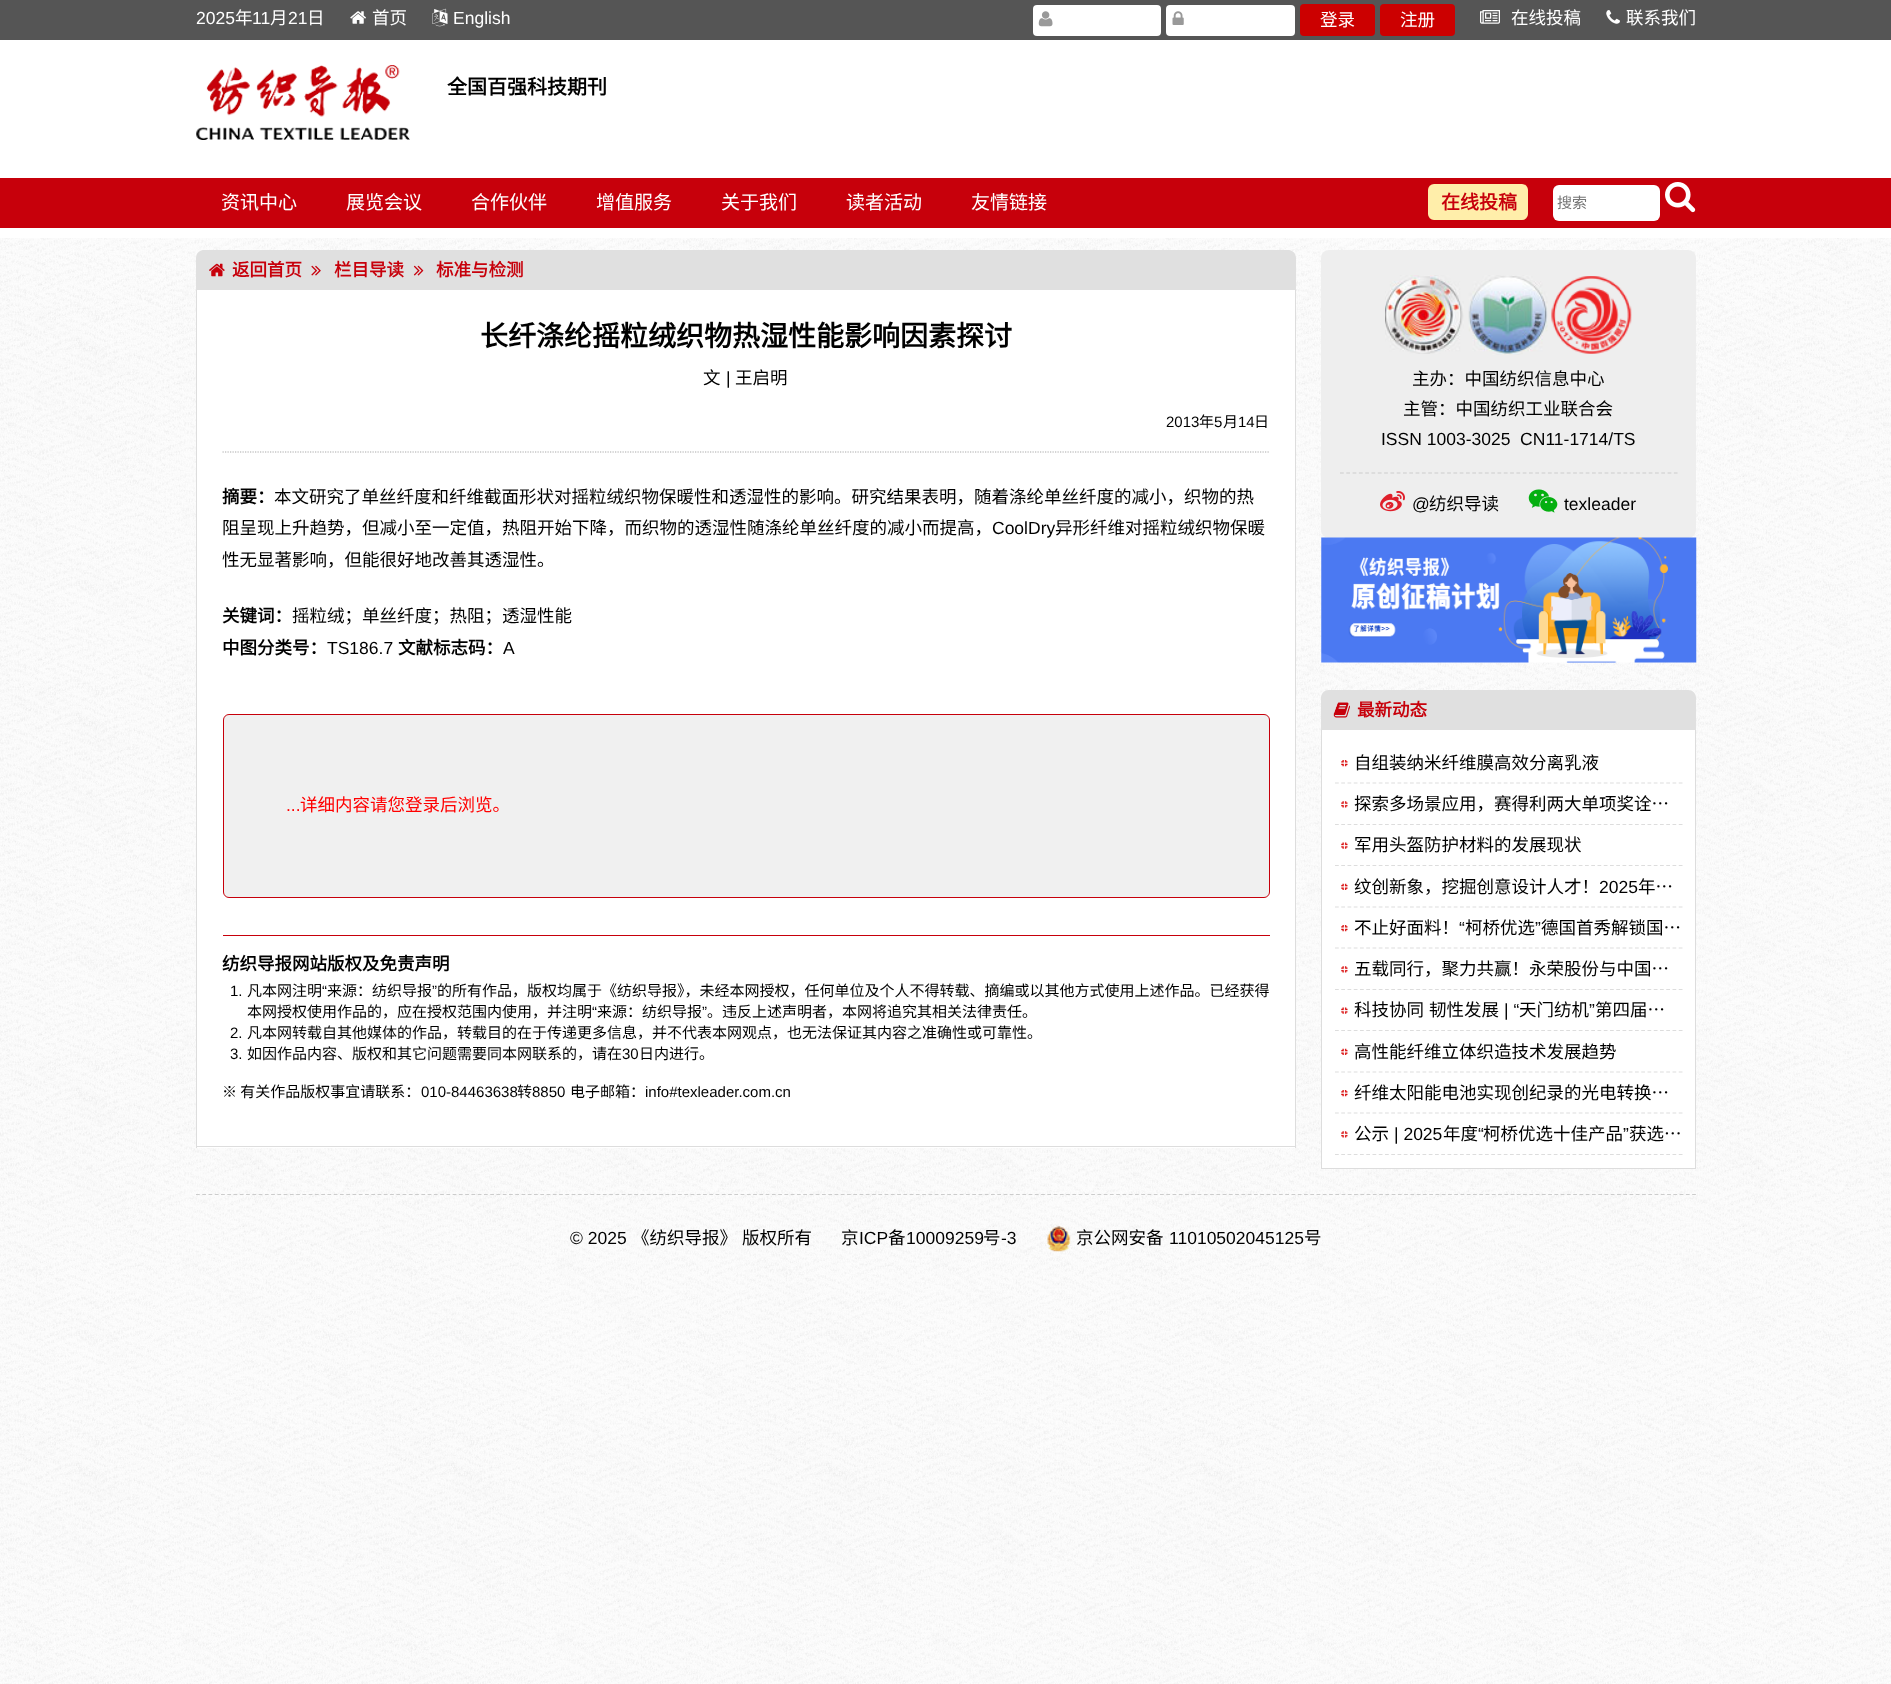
<svg xmlns="http://www.w3.org/2000/svg" width="1891" height="1684">
<rect width="100%" height="100%" fill="#fff"/>
<image x="0" y="238" width="1891" height="1446" href="media/1.png"/>
<rect width="1891" height="40" fill="#555"/>
<text x="196" y="24" style="font-family:Liberation Sans;font-size:17.5px;fill:#fff">2025</text>
<text x="235" y="24" style="font-family:Noto Sans CJK SC;font-size:17.5px;fill:#fff">年</text>
<text x="252" y="24" style="font-family:Liberation Sans;font-size:17.5px;fill:#fff">11</text>
<text x="270" y="24" style="font-family:Noto Sans CJK SC;font-size:17.5px;fill:#fff">月</text>
<text x="288" y="24" style="font-family:Liberation Sans;font-size:17.5px;fill:#fff">21</text>
<text x="307" y="24" style="font-family:Noto Sans CJK SC;font-size:17.5px;fill:#fff">日</text>
<image x="350" y="11" width="16" height="13" href="media/2.png"/>
<text x="372" y="24" style="font-family:Noto Sans CJK SC;font-size:17.5px;fill:#fff">首页</text>
<image x="432" y="8" width="16" height="19" href="media/3.png"/>
<text x="453" y="24" style="font-family:Liberation Sans;font-size:17.5px;fill:#fff">English</text>
<rect x="1033" y="5" width="128" height="31" rx="4" fill="#fff"/>
<rect x="1166" y="5" width="129" height="31" rx="4" fill="#fff"/>
<image x="1038" y="11" width="15" height="16" href="media/4.png"/>
<image x="1172" y="11" width="12" height="14" href="media/5.png"/>
<rect x="1300" y="4" width="75" height="32" rx="4" fill="#c00"/>
<text x="1320" y="26" style="font-family:Noto Sans CJK SC;font-size:17.5px;fill:#fff">登录</text>
<rect x="1380" y="4" width="75" height="32" rx="4" fill="#c00"/>
<text x="1400" y="26" style="font-family:Noto Sans CJK SC;font-size:17.5px;fill:#fff">注册</text>
<image x="1480" y="10" width="20" height="14" href="media/6.png"/>
<text x="1511" y="24" style="font-family:Noto Sans CJK SC;font-size:17.5px;fill:#fff">在线投稿</text>
<image x="1606" y="10" width="14" height="14" href="media/7.png"/>
<text x="1626" y="24" style="font-family:Noto Sans CJK SC;font-size:17.5px;fill:#fff">联系我们</text>
<image x="196" y="65" width="214" height="75" href="media/8.png"/>
<text x="447" y="94" style="font-family:Noto Sans CJK SC;font-size:20px;font-weight:bold;fill:#000">全国百强科技期刊</text>
<rect y="178" width="1891" height="50" fill="#c7000b"/>
<text x="221" y="209" style="font-family:Noto Sans CJK SC;font-size:19px;fill:#fff">资讯中心</text>
<text x="346" y="209" style="font-family:Noto Sans CJK SC;font-size:19px;fill:#fff">展览会议</text>
<text x="471" y="209" style="font-family:Noto Sans CJK SC;font-size:19px;fill:#fff">合作伙伴</text>
<text x="596" y="209" style="font-family:Noto Sans CJK SC;font-size:19px;fill:#fff">增值服务</text>
<text x="721" y="209" style="font-family:Noto Sans CJK SC;font-size:19px;fill:#fff">关于我们</text>
<text x="846" y="209" style="font-family:Noto Sans CJK SC;font-size:19px;fill:#fff">读者活动</text>
<text x="971" y="209" style="font-family:Noto Sans CJK SC;font-size:19px;fill:#fff">友情链接</text>
<rect x="1428" y="184" width="100" height="36" rx="6" fill="#fea"/>
<text x="1441" y="209" style="font-family:Noto Sans CJK SC;font-size:19px;font-weight:bold;fill:#c7000b">在线投稿</text>
<rect x="1553" y="185" width="107" height="36" rx="6" fill="#fff"/>
<text x="1557" y="208" style="font-family:Noto Sans CJK SC;font-size:15px;fill:#757575">搜索</text>
<image x="1665" y="182" width="31" height="31" href="media/9.png"/>
<path d="M204 250h1084c4.5 0 8 3.5 8 8v32h-1100v-32c0-4.5 3.5-8 8-8z" fill="#e0e0e0"/>
<image x="209" y="263" width="16" height="14" href="media/10.png"/>
<text x="232" y="276" style="font-family:Noto Sans CJK SC;font-size:17.5px;font-weight:bold;fill:#c7000b">返回首页</text>
<image x="311" y="265" width="10" height="11" href="media/11.png"/>
<text x="334" y="276" style="font-family:Noto Sans CJK SC;font-size:17.5px;font-weight:bold;fill:#c7000b">栏目导读</text>
<image x="413" y="265" width="11" height="11" href="media/12.png"/>
<text x="436" y="276" style="font-family:Noto Sans CJK SC;font-size:17.5px;font-weight:bold;fill:#c7000b">标准与检测</text>
<rect x="197" y="290" width="1098" height="858" fill="#fff"/>
<rect x="1295" y="290" width="1" height="858" fill="#ddd"/>
<rect x="196" y="1146" width="1100" height="1" fill="#ddd"/>
<rect x="196" y="290" width="1" height="858" fill="#ddd"/>
<path d="M222.5 452h1047.5" fill="none" stroke="#aaa" stroke-width="1.2" stroke-dasharray="1.25 1.25"/>
<text x="480" y="346" style="font-family:Noto Sans CJK SC;font-size:28px;font-weight:bold;fill:#000">长纤涤纶摇粒绒织物热湿性能影响因素探讨</text>
<text x="703" y="384" style="font-family:Noto Sans CJK SC;font-size:17.5px;fill:#000">文</text>
<text x="726" y="384" style="font-family:Liberation Sans;font-size:17.5px;fill:#000">|</text>
<text x="735" y="384" style="font-family:Noto Sans CJK SC;font-size:17.5px;fill:#000">王启明</text>
<text x="1166" y="427" style="font-family:Liberation Sans;font-size:15px;fill:#000">2013</text>
<text x="1199" y="427" style="font-family:Noto Sans CJK SC;font-size:15px;fill:#000">年</text>
<text x="1214" y="427" style="font-family:Liberation Sans;font-size:15px;fill:#000">5</text>
<text x="1223" y="427" style="font-family:Noto Sans CJK SC;font-size:15px;fill:#000">月</text>
<text x="1238" y="427" style="font-family:Liberation Sans;font-size:15px;fill:#000">14</text>
<text x="1254" y="427" style="font-family:Noto Sans CJK SC;font-size:15px;fill:#000">日</text>
<text x="222" y="503" style="font-family:Noto Sans CJK SC;font-size:17.5px;font-weight:bold;fill:#000">摘要：</text>
<text x="274" y="503" style="font-family:Noto Sans CJK SC;font-size:17.5px;fill:#000">本文研究了单丝纤度和纤维截面形状对摇粒绒织物保暖性和透湿性的影响。研究结果表明，随着涤纶单丝纤度的减小，织物的热</text>
<text x="222" y="534" style="font-family:Noto Sans CJK SC;font-size:17.5px;fill:#000">阻呈现上升趋势，但减小至一定值，热阻开始下降，而织物的透湿性随涤纶单丝纤度的减小而提高，</text>
<text x="992" y="534" style="font-family:Liberation Sans;font-size:17.5px;fill:#000">CoolDry</text>
<text x="1055" y="534" style="font-family:Noto Sans CJK SC;font-size:17.5px;fill:#000">异形纤维对摇粒绒织物保暖</text>
<text x="222" y="566" style="font-family:Noto Sans CJK SC;font-size:17.5px;fill:#000">性无显著影响，但能很好地改善其透湿性。</text>
<text x="222" y="622" style="font-family:Noto Sans CJK SC;font-size:17.5px;font-weight:bold;fill:#000">关键词：</text>
<text x="292" y="622" style="font-family:Noto Sans CJK SC;font-size:17.5px;fill:#000">摇粒绒；单丝纤度；热阻；透湿性能</text>
<text x="222" y="654" style="font-family:Noto Sans CJK SC;font-size:17.5px;font-weight:bold;fill:#000">中图分类号：</text>
<text x="327" y="654" style="font-family:Liberation Sans;font-size:17.5px;fill:#000">TS186.7</text>
<text x="398" y="654" style="font-family:Noto Sans CJK SC;font-size:17.5px;font-weight:bold;fill:#000">文献标志码：</text>
<text x="503" y="654" style="font-family:Liberation Sans;font-size:17.5px;fill:#000">A</text>
<rect x="223.5" y="714.5" width="1046" height="183" rx="5.5" fill="#f0f0f0" stroke="#c7000b"/>
<text x="286" y="811" style="font-family:Liberation Sans;font-size:17.5px;fill:#f00">...</text>
<text x="300" y="811" style="font-family:Noto Sans CJK SC;font-size:17.5px;fill:#f00">详细内容请您登录后浏览。</text>
<rect x="223" y="935" width="1047" height="1" fill="#c7000b"/>
<text x="222" y="970" style="font-family:Noto Sans CJK SC;font-size:17.5px;font-weight:bold;fill:#000">纺织导报网站版权及免责声明</text>
<text x="230" y="996" style="font-family:Liberation Sans;font-size:15px;fill:#000">1.</text>
<text x="247" y="996" style="font-family:Noto Sans CJK SC;font-size:15px;fill:#000">凡本网注明</text>
<text x="322" y="996" style="font-family:Liberation Sans;font-size:15px;fill:#000">“</text>
<text x="327" y="996" style="font-family:Noto Sans CJK SC;font-size:15px;fill:#000">来源：纺织导报</text>
<text x="432" y="996" style="font-family:Liberation Sans;font-size:15px;fill:#000">”</text>
<text x="437" y="996" style="font-family:Noto Sans CJK SC;font-size:15px;fill:#000">的所有作品，版权均属于《纺织导报》，未经本网授权，任何单位及个人不得转载、摘编或以其他方式使用上述作品。已经获得</text>
<text x="247" y="1017" style="font-family:Noto Sans CJK SC;font-size:15px;fill:#000">本网授权使用作品的，应在授权范围内使用，并注明</text>
<text x="592" y="1017" style="font-family:Liberation Sans;font-size:15px;fill:#000">“</text>
<text x="597" y="1017" style="font-family:Noto Sans CJK SC;font-size:15px;fill:#000">来源：纺织导报</text>
<text x="702" y="1017" style="font-family:Liberation Sans;font-size:15px;fill:#000">”</text>
<text x="707" y="1017" style="font-family:Noto Sans CJK SC;font-size:15px;fill:#000">。违反上述声明者，本网将追究其相关法律责任。</text>
<text x="230" y="1038" style="font-family:Liberation Sans;font-size:15px;fill:#000">2.</text>
<text x="247" y="1038" style="font-family:Noto Sans CJK SC;font-size:15px;fill:#000">凡本网转载自其他媒体的作品，转载目的在于传递更多信息，并不代表本网观点，也无法保证其内容之准确性或可靠性。</text>
<text x="230" y="1059" style="font-family:Liberation Sans;font-size:15px;fill:#000">3.</text>
<text x="247" y="1059" style="font-family:Noto Sans CJK SC;font-size:15px;fill:#000">如因作品内容、版权和其它问题需要同本网联系的，请在</text>
<text x="622" y="1059" style="font-family:Liberation Sans;font-size:15px;fill:#000">30</text>
<text x="639" y="1059" style="font-family:Noto Sans CJK SC;font-size:15px;fill:#000">日内进行。</text>
<text x="222" y="1097" style="font-family:Noto Sans CJK SC;font-size:15px;fill:#000">※ 有关作品版权事宜请联系：</text>
<text x="421" y="1097" style="font-family:Liberation Sans;font-size:15px;fill:#000">010-84463638</text>
<text x="517" y="1097" style="font-family:Noto Sans CJK SC;font-size:15px;fill:#000">转</text>
<text x="532" y="1097" style="font-family:Liberation Sans;font-size:15px;fill:#000">8850</text>
<text x="570" y="1097" style="font-family:Noto Sans CJK SC;font-size:15px;fill:#000">电子邮箱：</text>
<text x="645" y="1097" style="font-family:Liberation Sans;font-size:15px;fill:#000">info#texleader.com.cn</text>
<rect x="1321" y="250" width="375" height="288" rx="8" fill="#eee"/>
<image x="1385" y="275" width="79" height="79" href="media/13.png"/>
<image x="1468" y="275" width="80" height="80" href="media/14.png"/>
<image x="1551" y="276" width="81" height="78" href="media/15.png"/>
<text x="1412" y="385" style="font-family:Noto Sans CJK SC;font-size:17.5px;fill:#000">主办：中国纺织信息中心</text>
<text x="1403" y="415" style="font-family:Noto Sans CJK SC;font-size:17.5px;fill:#000">主管：中国纺织工业联合会</text>
<text x="1381" y="445" style="font-family:Liberation Sans;font-size:17.5px;fill:#000" xml:space="preserve">ISSN 1003-3025  CN11-1714/TS</text>
<path d="M1340 473h337.5" fill="none" stroke="#ccc" stroke-width="1.2" stroke-dasharray="3.75 2.55"/>
<image x="1380" y="491" width="25" height="21" href="media/16.png"/>
<text x="1412" y="510" style="font-family:Liberation Sans;font-size:17.5px;fill:#000">@</text>
<text x="1429" y="510" style="font-family:Noto Sans CJK SC;font-size:17.5px;fill:#000">纺织导读</text>
<image x="1528" y="489" width="30" height="24" href="media/17.png"/>
<text x="1564" y="510" style="font-family:Liberation Sans;font-size:17.5px;fill:#000">texleader</text>
<image x="1321" y="537" width="376" height="126" href="media/18.png"/>
<path d="M1329 690h359c4.5 0 8 3.5 8 8v32h-375v-32c0-4.5 3.5-8 8-8z" fill="#e0e0e0"/>
<image x="1333" y="702" width="17" height="16" href="media/19.png"/>
<text x="1357" y="716" style="font-family:Noto Sans CJK SC;font-size:17.5px;font-weight:bold;fill:#c7000b">最新动态</text>
<rect x="1322" y="730" width="373" height="438" fill="#fff"/>
<rect x="1695" y="730" width="1" height="439" fill="#ddd"/>
<rect x="1321" y="1168" width="375" height="1" fill="#ddd"/>
<rect x="1321" y="730" width="1" height="439" fill="#ddd"/>
<image x="1341" y="760" width="7" height="7" href="media/20.png"/>
<path d="M1335 783h347.5" fill="none" stroke="#ddd" stroke-width="1.2" stroke-dasharray="3.75 2.5"/>
<text x="1354" y="769" style="font-family:Noto Sans CJK SC;font-size:17.5px;fill:#000">自组装纳米纤维膜高效分离乳液</text>
<image x="1341" y="801" width="7" height="7" href="media/21.png"/>
<path d="M1335 824.5h347.5" fill="none" stroke="#ddd" stroke-width="1.2" stroke-dasharray="3.75 2.5"/>
<text x="1354" y="810" style="font-family:Noto Sans CJK SC;font-size:17.5px;fill:#000">探索多场景应用，赛得利两大单项奖诠…</text>
<image x="1341" y="842" width="7" height="7" href="media/22.png"/>
<path d="M1335 865.5h347.5" fill="none" stroke="#ddd" stroke-width="1.2" stroke-dasharray="3.75 2.5"/>
<text x="1354" y="851" style="font-family:Noto Sans CJK SC;font-size:17.5px;fill:#000">军用头盔防护材料的发展现状</text>
<image x="1341" y="883" width="7" height="7" href="media/23.png"/>
<path d="M1335 907h347.5" fill="none" stroke="#ddd" stroke-width="1.2" stroke-dasharray="3.75 2.5"/>
<text x="1354" y="893" style="font-family:Noto Sans CJK SC;font-size:17.5px;fill:#000">纹创新象，挖掘创意设计人才！</text>
<text x="1599" y="893" style="font-family:Liberation Sans;font-size:17.5px;fill:#000">2025</text>
<text x="1638" y="893" style="font-family:Noto Sans CJK SC;font-size:17.5px;fill:#000">年…</text>
<image x="1341" y="925" width="7" height="7" href="media/20.png"/>
<path d="M1335 948h347.5" fill="none" stroke="#ddd" stroke-width="1.2" stroke-dasharray="3.75 2.5"/>
<text x="1354" y="934" style="font-family:Noto Sans CJK SC;font-size:17.5px;fill:#000">不止好面料！</text>
<text x="1459" y="934" style="font-family:Liberation Sans;font-size:17.5px;fill:#000">“</text>
<text x="1465" y="934" style="font-family:Noto Sans CJK SC;font-size:17.5px;fill:#000">柯桥优选</text>
<text x="1535" y="934" style="font-family:Liberation Sans;font-size:17.5px;fill:#000">”</text>
<text x="1541" y="934" style="font-family:Noto Sans CJK SC;font-size:17.5px;fill:#000">德国首秀解锁国…</text>
<image x="1341" y="966" width="7" height="7" href="media/21.png"/>
<path d="M1335 989.5h347.5" fill="none" stroke="#ddd" stroke-width="1.2" stroke-dasharray="3.75 2.5"/>
<text x="1354" y="975" style="font-family:Noto Sans CJK SC;font-size:17.5px;fill:#000">五载同行，聚力共赢！永荣股份与中国…</text>
<image x="1341" y="1007" width="7" height="7" href="media/22.png"/>
<path d="M1335 1030.5h347.5" fill="none" stroke="#ddd" stroke-width="1.2" stroke-dasharray="3.75 2.5"/>
<text x="1354" y="1016" style="font-family:Noto Sans CJK SC;font-size:17.5px;fill:#000">科技协同</text>
<text x="1429" y="1016" style="font-family:Noto Sans CJK SC;font-size:17.5px;fill:#000">韧性发展</text>
<text x="1504" y="1016" style="font-family:Liberation Sans;font-size:17.5px;fill:#000">| “</text>
<text x="1519" y="1016" style="font-family:Noto Sans CJK SC;font-size:17.5px;fill:#000">天门纺机</text>
<text x="1589" y="1016" style="font-family:Liberation Sans;font-size:17.5px;fill:#000">”</text>
<text x="1595" y="1016" style="font-family:Noto Sans CJK SC;font-size:17.5px;fill:#000">第四届…</text>
<image x="1341" y="1048" width="7" height="7" href="media/23.png"/>
<path d="M1335 1072h347.5" fill="none" stroke="#ddd" stroke-width="1.2" stroke-dasharray="3.75 2.5"/>
<text x="1354" y="1058" style="font-family:Noto Sans CJK SC;font-size:17.5px;fill:#000">高性能纤维立体织造技术发展趋势</text>
<image x="1341" y="1090" width="7" height="7" href="media/20.png"/>
<path d="M1335 1113h347.5" fill="none" stroke="#ddd" stroke-width="1.2" stroke-dasharray="3.75 2.5"/>
<text x="1354" y="1099" style="font-family:Noto Sans CJK SC;font-size:17.5px;fill:#000">纤维太阳能电池实现创纪录的光电转换…</text>
<image x="1341" y="1131" width="7" height="7" href="media/21.png"/>
<path d="M1335 1154.5h347.5" fill="none" stroke="#ddd" stroke-width="1.2" stroke-dasharray="3.75 2.5"/>
<text x="1354" y="1140" style="font-family:Noto Sans CJK SC;font-size:17.5px;fill:#000">公示</text>
<text x="1394" y="1140" style="font-family:Liberation Sans;font-size:17.5px;fill:#000">| 2025</text>
<text x="1443" y="1140" style="font-family:Noto Sans CJK SC;font-size:17.5px;fill:#000">年度</text>
<text x="1478" y="1140" style="font-family:Liberation Sans;font-size:17.5px;fill:#000">“</text>
<text x="1483" y="1140" style="font-family:Noto Sans CJK SC;font-size:17.5px;fill:#000">柯桥优选十佳产品</text>
<text x="1623" y="1140" style="font-family:Liberation Sans;font-size:17.5px;fill:#000">”</text>
<text x="1629" y="1140" style="font-family:Noto Sans CJK SC;font-size:17.5px;fill:#000">获选…</text>
<path d="M196 1194.5h1500" fill="none" stroke="#ccc" stroke-width="1.2" stroke-dasharray="3.75 2.51"/>
<text x="570" y="1244" style="font-family:Liberation Sans;font-size:17.5px;fill:#000">© 2025</text>
<text x="632" y="1244" style="font-family:Noto Sans CJK SC;font-size:17.5px;fill:#000">《纺织导报》</text>
<text x="742" y="1244" style="font-family:Noto Sans CJK SC;font-size:17.5px;fill:#000">版权所有</text>
<text x="841" y="1244" style="font-family:Noto Sans CJK SC;font-size:17.5px;fill:#000">京</text>
<text x="859" y="1244" style="font-family:Liberation Sans;font-size:17.5px;fill:#000">ICP</text>
<text x="888" y="1244" style="font-family:Noto Sans CJK SC;font-size:17.5px;fill:#000">备</text>
<text x="906" y="1244" style="font-family:Liberation Sans;font-size:17.5px;fill:#000">10009259</text>
<text x="983" y="1244" style="font-family:Noto Sans CJK SC;font-size:17.5px;fill:#000">号</text>
<text x="1001" y="1244" style="font-family:Liberation Sans;font-size:17.5px;fill:#000">-3</text>
<image x="1047" y="1226" width="24" height="26" href="media/24.png"/>
<text x="1076" y="1244" style="font-family:Noto Sans CJK SC;font-size:17.5px;fill:#000">京公网安备</text>
<text x="1169" y="1244" style="font-family:Liberation Sans;font-size:17.5px;fill:#000">11010502045125</text>
<text x="1304" y="1244" style="font-family:Noto Sans CJK SC;font-size:17.5px;fill:#000">号</text>
</svg>
